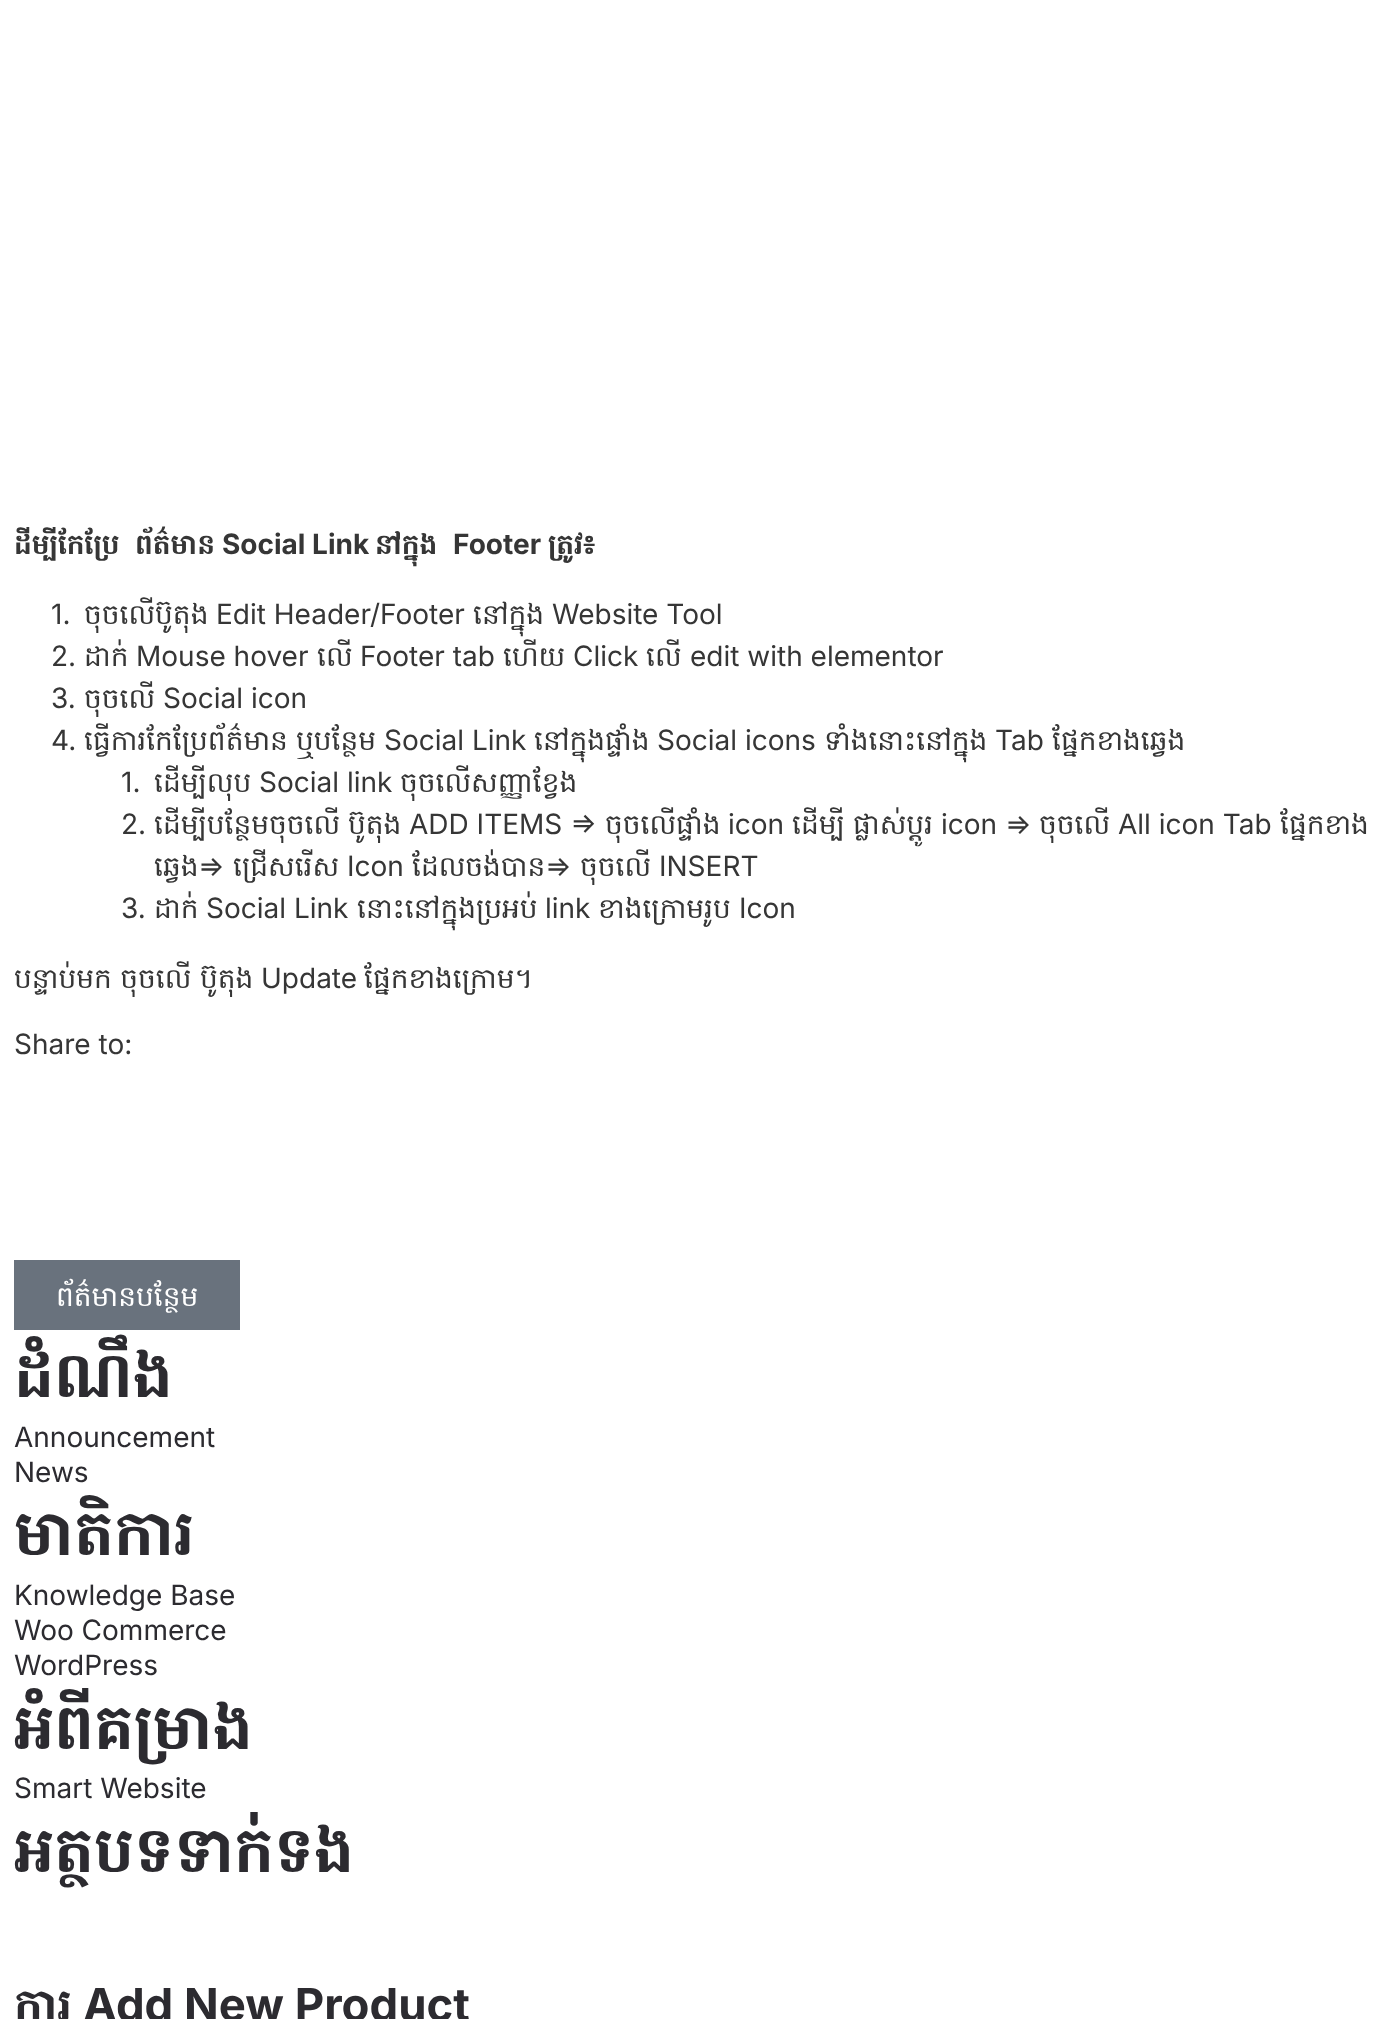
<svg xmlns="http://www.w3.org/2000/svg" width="1397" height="2019">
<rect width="100%" height="100%" fill="#fff"/>
<text x="14" y="554" style="font-family:Hanuman;font-size:28px;font-weight:bold;fill:#363636">ដើម្បីកែប្រែ</text>
<text x="135" y="554" style="font-family:Hanuman;font-size:28px;font-weight:bold;fill:#363636">ព័ត៌មាន</text>
<text x="222" y="554" style="font-family:Inter;font-size:28px;font-weight:bold;fill:#363636">Social Link</text>
<text x="375" y="554" style="font-family:Hanuman;font-size:28px;font-weight:bold;fill:#363636">នៅក្នុង</text>
<text x="453" y="554" style="font-family:Inter;font-size:28px;font-weight:bold;fill:#363636">Footer</text>
<text x="548" y="554" style="font-family:Hanuman;font-size:28px;font-weight:bold;fill:#363636">ត្រូវ៖</text>
<text x="51" y="624" style="font-family:Inter;font-size:28px;fill:#363636">1.</text>
<text x="84" y="624" style="font-family:Hanuman;font-size:28px;fill:#363636">ចុចលើប៊ូតុង</text>
<text x="216" y="624" style="font-family:Inter;font-size:28px;fill:#363636">Edit Header/Footer</text>
<text x="473" y="624" style="font-family:Hanuman;font-size:28px;fill:#363636">នៅក្នុង</text>
<text x="552" y="624" style="font-family:Inter;font-size:28px;fill:#363636">Website Tool</text>
<text x="51" y="666" style="font-family:Inter;font-size:28px;fill:#363636">2.</text>
<text x="84" y="666" style="font-family:Hanuman;font-size:28px;fill:#363636">ដាក់</text>
<text x="136" y="666" style="font-family:Inter;font-size:28px;fill:#363636">Mouse hover</text>
<text x="317" y="666" style="font-family:Hanuman;font-size:28px;fill:#363636">លើ</text>
<text x="360" y="666" style="font-family:Inter;font-size:28px;fill:#363636">Footer tab</text>
<text x="503" y="666" style="font-family:Hanuman;font-size:28px;fill:#363636">ហើយ</text>
<text x="573" y="666" style="font-family:Inter;font-size:28px;fill:#363636">Click</text>
<text x="646" y="666" style="font-family:Hanuman;font-size:28px;fill:#363636">លើ</text>
<text x="690" y="666" style="font-family:Inter;font-size:28px;fill:#363636">edit with elementor</text>
<text x="51" y="708" style="font-family:Inter;font-size:28px;fill:#363636">3.</text>
<text x="84" y="708" style="font-family:Hanuman;font-size:28px;fill:#363636">ចុចលើ</text>
<text x="163" y="708" style="font-family:Inter;font-size:28px;fill:#363636">Social icon</text>
<text x="51" y="750" style="font-family:Inter;font-size:28px;fill:#363636">4.</text>
<text x="84" y="750" style="font-family:Hanuman;font-size:28px;fill:#363636">ធ្វើការកែប្រែព័ត៌មាន</text>
<text x="296" y="750" style="font-family:Hanuman;font-size:28px;fill:#363636">ឬបន្ថែម</text>
<text x="384" y="750" style="font-family:Inter;font-size:28px;fill:#363636">Social Link</text>
<text x="534" y="750" style="font-family:Hanuman;font-size:28px;fill:#363636">នៅក្នុងផ្ទាំង</text>
<text x="657" y="750" style="font-family:Inter;font-size:28px;fill:#363636">Social icons</text>
<text x="824" y="750" style="font-family:Hanuman;font-size:28px;fill:#363636">ទាំងនោះនៅក្នុង</text>
<text x="995" y="750" style="font-family:Inter;font-size:28px;fill:#363636">Tab</text>
<text x="1052" y="750" style="font-family:Hanuman;font-size:28px;fill:#363636">ផ្នែកខាងឆ្វេង</text>
<text x="121" y="792" style="font-family:Inter;font-size:28px;fill:#363636">1.</text>
<text x="154" y="792" style="font-family:Hanuman;font-size:28px;fill:#363636">ដើម្បីលុប</text>
<text x="259" y="792" style="font-family:Inter;font-size:28px;fill:#363636">Social link</text>
<text x="400" y="792" style="font-family:Hanuman;font-size:28px;fill:#363636">ចុចលើសញ្ញាខ្វែង</text>
<text x="121" y="834" style="font-family:Inter;font-size:28px;fill:#363636">2.</text>
<text x="154" y="834" style="font-family:Hanuman;font-size:28px;fill:#363636">ដើម្បីបន្ថែមចុចលើ</text>
<text x="348" y="834" style="font-family:Hanuman;font-size:28px;fill:#363636">ប៊ូតុង</text>
<text x="409" y="834" style="font-family:Inter;font-size:28px;fill:#363636">ADD ITEMS =&gt;</text>
<text x="605" y="834" style="font-family:Hanuman;font-size:28px;fill:#363636">ចុចលើផ្ទាំង</text>
<text x="728" y="834" style="font-family:Inter;font-size:28px;fill:#363636">icon</text>
<text x="792" y="834" style="font-family:Hanuman;font-size:28px;fill:#363636">ដើម្បី</text>
<text x="853" y="834" style="font-family:Hanuman;font-size:28px;fill:#363636">ផ្លាស់ប្តូរ</text>
<text x="941" y="834" style="font-family:Inter;font-size:28px;fill:#363636">icon =&gt;</text>
<text x="1039" y="834" style="font-family:Hanuman;font-size:28px;fill:#363636">ចុចលើ</text>
<text x="1118" y="834" style="font-family:Inter;font-size:28px;fill:#363636">All icon Tab</text>
<text x="1280" y="834" style="font-family:Hanuman;font-size:28px;fill:#363636">ផ្នែកខាង</text>
<text x="154" y="876" style="font-family:Hanuman;font-size:28px;fill:#363636">ឆ្វេង</text>
<text x="198" y="876" style="font-family:Inter;font-size:28px;fill:#363636">=&gt;</text>
<text x="233" y="876" style="font-family:Hanuman;font-size:28px;fill:#363636">ជ្រើសរើស</text>
<text x="347" y="876" style="font-family:Inter;font-size:28px;fill:#363636">Icon</text>
<text x="412" y="876" style="font-family:Hanuman;font-size:28px;fill:#363636">ដែលចង់បាន</text>
<text x="545" y="876" style="font-family:Inter;font-size:28px;fill:#363636">=&gt;</text>
<text x="580" y="876" style="font-family:Hanuman;font-size:28px;fill:#363636">ចុចលើ</text>
<text x="659" y="876" style="font-family:Inter;font-size:28px;fill:#363636">INSERT</text>
<text x="121" y="918" style="font-family:Inter;font-size:28px;fill:#363636">3.</text>
<text x="154" y="918" style="font-family:Hanuman;font-size:28px;fill:#363636">ដាក់</text>
<text x="206" y="918" style="font-family:Inter;font-size:28px;fill:#363636">Social Link</text>
<text x="357" y="918" style="font-family:Hanuman;font-size:28px;fill:#363636">នោះនៅក្នុងប្រអប់</text>
<text x="545" y="918" style="font-family:Inter;font-size:28px;fill:#363636">link</text>
<text x="598" y="918" style="font-family:Hanuman;font-size:28px;fill:#363636">ខាងក្រោមរូប</text>
<text x="739" y="918" style="font-family:Inter;font-size:28px;fill:#363636">Icon</text>
<text x="14" y="988" word-spacing="-1" style="font-family:Hanuman;font-size:28px;fill:#363636">បន្ទាប់មក ចុចលើ ប៊ូតុង</text>
<text x="261" y="988" style="font-family:Inter;font-size:28px;fill:#363636">Update</text>
<text x="364" y="988" style="font-family:Hanuman;font-size:28px;fill:#363636">ផ្នែកខាងក្រោម។</text>
<text x="14" y="1054" style="font-family:Inter;font-size:28px;fill:#363636">Share to:</text>
<rect x="14" y="1260" width="226" height="70" fill="#69727d"/>
<text x="56" y="1306" style="font-family:Hanuman;font-size:28px;fill:#fff">ព័ត៌មានបន្ថែម</text>
<text x="14" y="1397" style="font-family:Hanuman;font-size:63px;font-weight:bold;fill:#2c2b30">ដំណឹង</text>
<text x="14" y="1447" style="font-family:Inter;font-size:28px;fill:#2c2b30">Announcement</text>
<text x="14" y="1482" style="font-family:Inter;font-size:28px;fill:#2c2b30">News</text>
<text x="14" y="1555" style="font-family:Hanuman;font-size:63px;font-weight:bold;fill:#2c2b30">មាតិការ</text>
<text x="14" y="1605" style="font-family:Inter;font-size:28px;fill:#2c2b30">Knowledge Base</text>
<text x="14" y="1640" style="font-family:Inter;font-size:28px;fill:#2c2b30">Woo Commerce</text>
<text x="14" y="1675" style="font-family:Inter;font-size:28px;fill:#2c2b30">WordPress</text>
<text x="14" y="1749" style="font-family:Hanuman;font-size:63px;font-weight:bold;fill:#2c2b30">អំពីគម្រោង</text>
<text x="14" y="1798" style="font-family:Inter;font-size:28px;fill:#2c2b30">Smart Website</text>
<text x="14" y="1872" style="font-family:Hanuman;font-size:63px;font-weight:bold;fill:#2c2b30">អត្ថបទទាក់ទង</text>
<text x="14" y="2021" style="font-family:Hanuman;font-size:45.5px;font-weight:bold;fill:#2c2b30">ការ</text>
<text x="83" y="2021" style="font-family:Inter;font-size:45.5px;font-weight:bold;fill:#2c2b30">Add New Product</text>
</svg>
